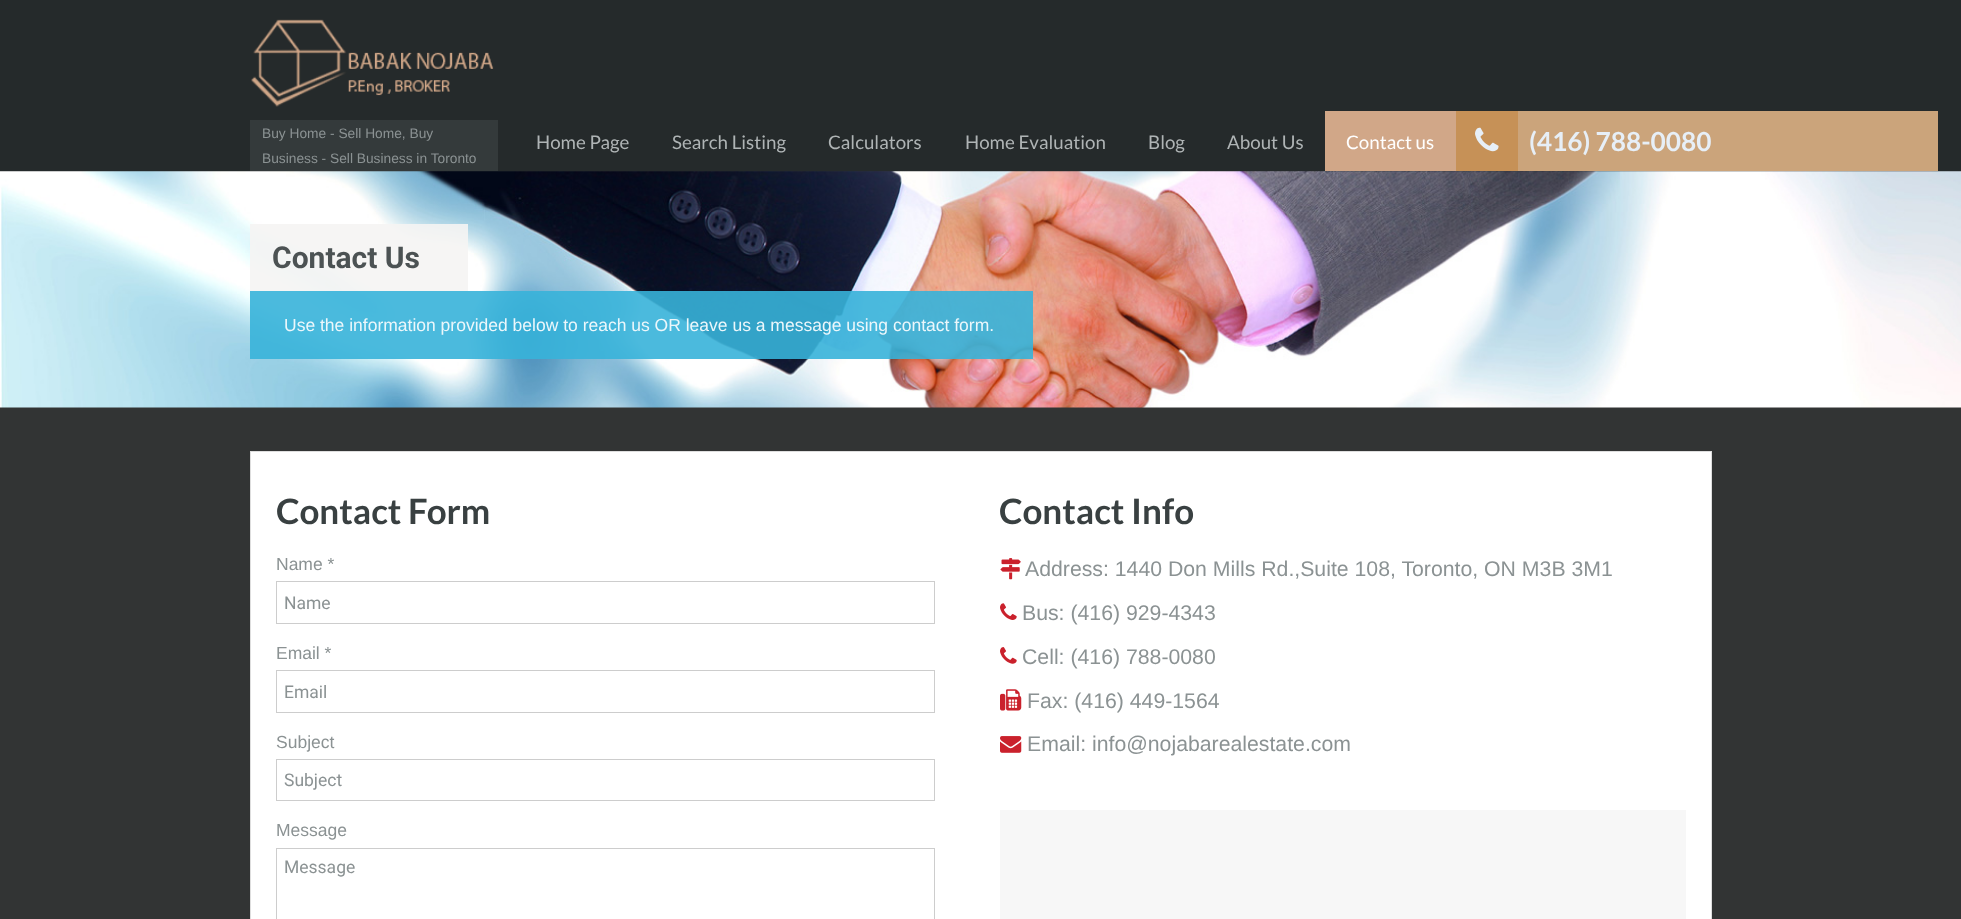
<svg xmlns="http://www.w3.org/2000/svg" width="1961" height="919">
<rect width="100%" height="100%" fill="#323434"/>
<rect width="1961" height="171" fill="#252a2b"/>
<image x="251" y="19" width="243" height="88" href="media/1.png"/>
<rect x="250" y="120" width="248" height="51" fill="#343a3b"/>
<text x="262" y="138" style="font-family:Liberation Sans;font-size:13.75px;fill:#8b9293">Buy Home - Sell Home, Buy</text>
<text x="262" y="163" style="font-family:Liberation Sans;font-size:13.75px;fill:#8b9293">Business - Sell Business in Toronto</text>
<text x="536" y="149" style="font-family:Lato;font-size:18.75px;fill:#afb4b5">Home Page</text>
<text x="672" y="149" style="font-family:Lato;font-size:18.75px;fill:#afb4b5">Search Listing</text>
<text x="828" y="149" style="font-family:Lato;font-size:18.75px;fill:#afb4b5">Calculators</text>
<text x="965" y="149" style="font-family:Lato;font-size:18.75px;fill:#afb4b5">Home Evaluation</text>
<text x="1148" y="149" style="font-family:Lato;font-size:18.75px;fill:#afb4b5">Blog</text>
<text x="1227" y="149" style="font-family:Lato;font-size:18.75px;fill:#afb4b5">About Us</text>
<rect x="1325" y="111" width="131" height="60" fill="#d1a788"/>
<text x="1346" y="149" style="font-family:Lato;font-size:18.75px;fill:#fff">Contact us</text>
<rect x="1518" y="111" width="420" height="60" fill="#cba47b"/>
<rect x="1456" y="111" width="62" height="60" fill="#c69157"/>
<image x="1475" y="127" width="24" height="25" href="media/2.png"/>
<text x="1529" y="151" style="font-family:Lato;font-size:26.25px;font-weight:bold;fill:#e7eff7">(416) 788-0080</text>
<image x="0" y="171" width="1961" height="237" href="media/3.png"/>
<rect x="250" y="224" width="218" height="67" fill="#f5f4f3e6"/>
<text x="272" y="268" style="font-family:Roboto;font-size:30px;font-weight:bold;fill:#4c5253">Contact Us</text>
<rect x="250" y="291" width="783" height="68" fill="#37b3d9e6"/>
<text x="284" y="331" style="font-family:Liberation Sans;font-size:17.5px;fill:#ecf7fb">Use the information provided below to reach us OR leave us a message using contact form.</text>
<rect x="1711" y="451" width="1" height="468" fill="#dedede"/>
<rect x="250" y="451" width="1" height="468" fill="#dedede"/>
<rect x="251" y="452" width="1460" height="467" fill="#fff"/>
<rect x="251" y="451" width="1460" height="1" fill="#dedede"/>
<text x="276" y="524" style="font-family:Lato;font-size:35px;font-weight:bold;fill:#394041">Contact Form</text>
<text x="276" y="570" style="font-family:Liberation Sans;font-size:17.5px;fill:#8b9293">Name *</text>
<rect x="276.5" y="581.5" width="658" height="42" fill="none" stroke="#cdcdcd"/>
<text x="284" y="609" style="font-family:Roboto;font-size:17.5px;fill:#8b9293">Name</text>
<text x="276" y="659" style="font-family:Liberation Sans;font-size:17.5px;fill:#8b9293">Email *</text>
<rect x="276.5" y="670.5" width="658" height="42" fill="none" stroke="#cdcdcd"/>
<text x="284" y="698" style="font-family:Roboto;font-size:17.5px;fill:#8b9293">Email</text>
<text x="276" y="748" style="font-family:Liberation Sans;font-size:17.5px;fill:#8b9293">Subject</text>
<rect x="276.5" y="759.5" width="658" height="41" fill="none" stroke="#cdcdcd"/>
<text x="284" y="786" style="font-family:Roboto;font-size:17.5px;fill:#8b9293">Subject</text>
<text x="276" y="836" style="font-family:Liberation Sans;font-size:17.5px;fill:#8b9293">Message</text>
<rect x="276.5" y="848.5" width="658" height="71" fill="none" stroke="#cdcdcd"/>
<text x="284" y="873" style="font-family:Roboto;font-size:17.5px;fill:#8b9293">Message</text>
<text x="999" y="524" style="font-family:Lato;font-size:35px;font-weight:bold;fill:#394041">Contact Info</text>
<image x="1000" y="558" width="21" height="22" href="media/4.png"/>
<text x="1025" y="576" style="font-family:Liberation Sans;font-size:21.25px;fill:#8b9293">Address: 1440 Don Mills Rd.,Suite 108, Toronto, ON M3B 3M1</text>
<image x="1000" y="603" width="17" height="17" href="media/5.png"/>
<text x="1022" y="620" style="font-family:Liberation Sans;font-size:21.25px;fill:#8b9293">Bus: (416) 929-4343</text>
<image x="1000" y="647" width="17" height="17" href="media/6.png"/>
<text x="1022" y="664" style="font-family:Liberation Sans;font-size:21.25px;fill:#8b9293">Cell: (416) 788-0080</text>
<image x="1000" y="689" width="22" height="22" href="media/7.png"/>
<text x="1027" y="708" style="font-family:Liberation Sans;font-size:21.25px;fill:#8b9293">Fax: (416) 449-1564</text>
<image x="1000" y="736" width="22" height="17" href="media/8.png"/>
<text x="1027" y="751" style="font-family:Liberation Sans;font-size:21.25px;fill:#8b9293">Email: info@nojabarealestate.com</text>
<rect x="1000" y="810" width="686" height="109" fill="#f7f7f7"/>
</svg>
